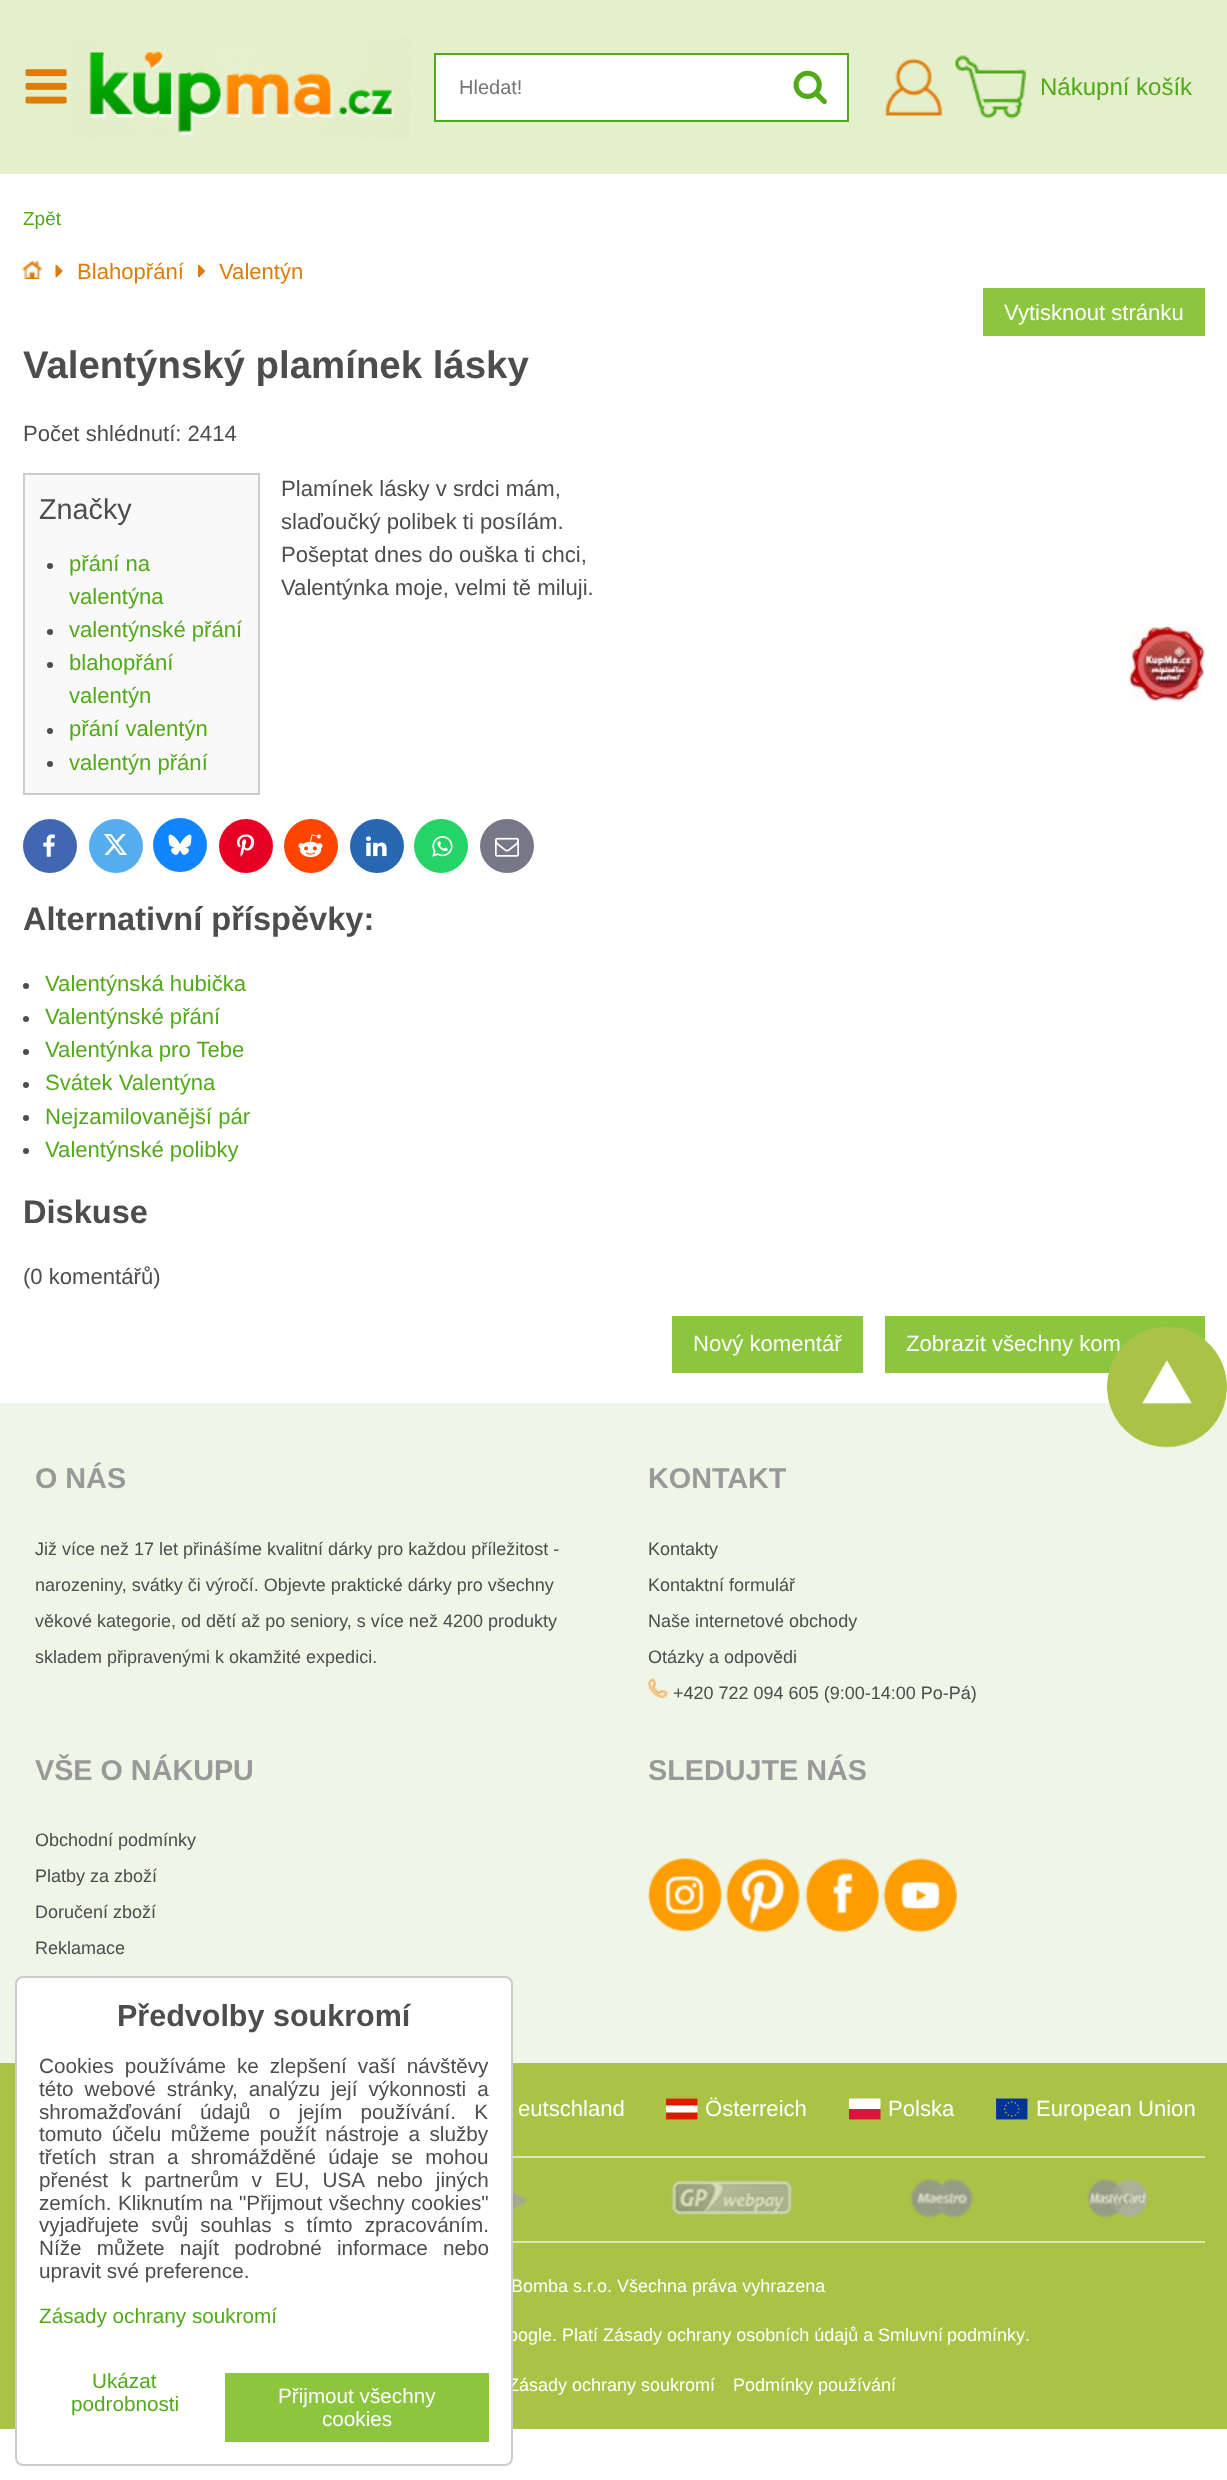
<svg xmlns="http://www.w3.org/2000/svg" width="1227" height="2480">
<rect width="100%" height="100%" fill="#fff"/>
<rect width="1227" height="174" fill="#e4efcc"/>
<image x="25" y="69" width="42" height="35" href="media/1.png"/>
<image x="70" y="37" width="340" height="101" href="media/2.png"/>
<rect x="435" y="54" width="413" height="67" fill="#fff" stroke="#52a919" stroke-width="2"/>
<text x="459" y="94" style="font-family:Liberation Sans;font-size:20px;fill:#757575">Hledat!</text>
<image x="793" y="70" width="34" height="35" href="media/3.png"/>
<image x="885" y="58" width="57" height="58" href="media/4.png"/>
<image x="954" y="55" width="72" height="64" href="media/5.png"/>
<text x="1040" y="95" style="font-family:Liberation Sans;font-size:24px;fill:#52a919">Nákupní košík</text>
<text x="23" y="225" style="font-family:Liberation Sans;font-size:19px;fill:#52a919">Zpět</text>
<image x="22" y="261" width="20" height="18" href="media/6.png"/>
<image x="55" y="264" width="8" height="14" href="media/7.png"/>
<text x="77" y="279" style="font-family:Liberation Sans;font-size:22.1px;fill:#dd7c09">Blahopřání</text>
<image x="198" y="264" width="7" height="14" href="media/8.png"/>
<text x="219" y="279" style="font-family:Liberation Sans;font-size:22.1px;fill:#dd7c09">Valentýn</text>
<rect x="983" y="288" width="222" height="48" fill="#8cc63f"/>
<text x="1004" y="320" style="font-family:Liberation Sans;font-size:22.1px;fill:#fff">Vytisknout stránku</text>
<text x="23" y="378" style="font-family:Liberation Sans;font-size:38.4px;font-weight:bold;fill:#4d4d4d">Valentýnský plamínek lásky</text>
<text x="23" y="441" style="font-family:Liberation Sans;font-size:22.1px;fill:#4d4d4d">Počet shlédnutí: 2414</text>
<rect x="24" y="474" width="235" height="320" fill="#f9f9f9" stroke="#ccc" stroke-width="2"/>
<text x="39" y="519" style="font-family:Liberation Sans;font-size:28.75px;fill:#4d4d4d">Značky</text>
<circle cx="50" cy="566" r="3" fill="#4d4d4d"/>
<text x="69" y="571" style="font-family:Liberation Sans;font-size:22.1px;fill:#52a919">přání na</text>
<text x="69" y="604" style="font-family:Liberation Sans;font-size:22.1px;fill:#52a919">valentýna</text>
<circle cx="50" cy="632" r="3" fill="#4d4d4d"/>
<text x="69" y="637" style="font-family:Liberation Sans;font-size:22.1px;fill:#52a919">valentýnské přání</text>
<circle cx="50" cy="665" r="3" fill="#4d4d4d"/>
<text x="69" y="670" style="font-family:Liberation Sans;font-size:22.1px;fill:#52a919">blahopřání</text>
<text x="69" y="703" style="font-family:Liberation Sans;font-size:22.1px;fill:#52a919">valentýn</text>
<circle cx="50" cy="731" r="3" fill="#4d4d4d"/>
<text x="69" y="736" style="font-family:Liberation Sans;font-size:22.1px;fill:#52a919">přání valentýn</text>
<circle cx="50" cy="764" r="3" fill="#4d4d4d"/>
<text x="69" y="770" style="font-family:Liberation Sans;font-size:22.1px;fill:#52a919">valentýn přání</text>
<text x="281" y="496" style="font-family:Liberation Sans;font-size:22.1px;fill:#4d4d4d">Plamínek lásky v srdci mám,</text>
<text x="281" y="529" style="font-family:Liberation Sans;font-size:22.1px;fill:#4d4d4d">slaďoučký polibek ti posílám.</text>
<text x="281" y="562" style="font-family:Liberation Sans;font-size:22.1px;fill:#4d4d4d">Pošeptat dnes do ouška ti chci,</text>
<text x="281" y="595" style="font-family:Liberation Sans;font-size:22.1px;fill:#4d4d4d">Valentýnka moje, velmi tě miluji.</text>
<image x="1129" y="627" width="76" height="75" href="media/9.png"/>
<circle cx="50" cy="846" r="27" fill="#4267b2"/>
<image x="43" y="834" width="12" height="23" href="media/10.png"/>
<circle cx="116" cy="846" r="27" fill="#55acee"/>
<image x="104" y="834" width="23" height="21" href="media/11.png"/>
<circle cx="180" cy="845" r="27" fill="#1185fe"/>
<image x="168" y="834" width="24" height="21" href="media/12.png"/>
<circle cx="246" cy="846" r="27" fill="#e60023"/>
<image x="237" y="834" width="18" height="23" href="media/13.png"/>
<circle cx="311" cy="846" r="27" fill="#ff4500"/>
<image x="298" y="834" width="25" height="24" href="media/14.png"/>
<circle cx="377" cy="846" r="27" fill="#2867b2"/>
<image x="366" y="836" width="21" height="21" href="media/15.png"/>
<circle cx="441" cy="846" r="27" fill="#25d366"/>
<image x="432" y="836" width="21" height="21" href="media/16.png"/>
<circle cx="507" cy="846" r="27" fill="#778"/>
<image x="495" y="837" width="24" height="20" href="media/17.png"/>
<text x="23" y="930" style="font-family:Liberation Sans;font-size:32.6px;font-weight:bold;fill:#4d4d4d">Alternativní příspěvky:</text>
<circle cx="26" cy="986" r="3" fill="#4d4d4d"/>
<text x="45" y="991" style="font-family:Liberation Sans;font-size:22.1px;fill:#52a919">Valentýnská hubička</text>
<circle cx="26" cy="1019" r="3" fill="#4d4d4d"/>
<text x="45" y="1024" style="font-family:Liberation Sans;font-size:22.1px;fill:#52a919">Valentýnské přání</text>
<circle cx="26" cy="1052" r="3" fill="#4d4d4d"/>
<text x="45" y="1057" style="font-family:Liberation Sans;font-size:22.1px;fill:#52a919">Valentýnka pro Tebe</text>
<circle cx="26" cy="1085" r="3" fill="#4d4d4d"/>
<text x="45" y="1090" style="font-family:Liberation Sans;font-size:22.1px;fill:#52a919">Svátek Valentýna</text>
<circle cx="26" cy="1118" r="3" fill="#4d4d4d"/>
<text x="45" y="1124" style="font-family:Liberation Sans;font-size:22.1px;fill:#52a919">Nejzamilovanější pár</text>
<circle cx="26" cy="1151" r="3" fill="#4d4d4d"/>
<text x="45" y="1157" style="font-family:Liberation Sans;font-size:22.1px;fill:#52a919">Valentýnské polibky</text>
<text x="23" y="1223" style="font-family:Liberation Sans;font-size:32.6px;font-weight:bold;fill:#4d4d4d">Diskuse</text>
<text x="23" y="1284" style="font-family:Liberation Sans;font-size:22.1px;fill:#4d4d4d">(0 komentářů)</text>
<rect x="672" y="1316" width="191" height="57" fill="#8cc63f"/>
<text x="693" y="1351" style="font-family:Liberation Sans;font-size:22.1px;fill:#fff">Nový komentář</text>
<rect x="885" y="1316" width="320" height="57" fill="#8cc63f"/>
<text x="906" y="1351" style="font-family:Liberation Sans;font-size:22.1px;fill:#fff">Zobrazit všechny kom</text>
<rect y="1403" width="1227" height="660" fill="#eff5e7"/>
<image x="1107" y="1326" width="120" height="122" href="media/18.png"/>
<text x="35" y="1488" style="font-family:Liberation Sans;font-size:28.75px;font-weight:bold;fill:#999">O NÁS</text>
<text x="35" y="1555" style="font-family:Liberation Sans;font-size:18px;fill:#4d4d4d">Již více než 17 let přinášíme kvalitní dárky pro každou příležitost -</text>
<text x="35" y="1591" style="font-family:Liberation Sans;font-size:18px;fill:#4d4d4d">narozeniny, svátky či výročí. Objevte praktické dárky pro všechny</text>
<text x="35" y="1627" style="font-family:Liberation Sans;font-size:18px;fill:#4d4d4d">věkové kategorie, od dětí až po seniory, s více než 4200 produkty</text>
<text x="35" y="1663" style="font-family:Liberation Sans;font-size:18px;fill:#4d4d4d">skladem připravenými k okamžité expedici.</text>
<text x="648" y="1488" style="font-family:Liberation Sans;font-size:28.75px;font-weight:bold;fill:#999">KONTAKT</text>
<text x="648" y="1555" style="font-family:Liberation Sans;font-size:18px;fill:#4d4d4d">Kontakty</text>
<text x="648" y="1591" style="font-family:Liberation Sans;font-size:18px;fill:#4d4d4d">Kontaktní formulář</text>
<text x="648" y="1627" style="font-family:Liberation Sans;font-size:18px;fill:#4d4d4d">Naše internetové obchody</text>
<text x="648" y="1663" style="font-family:Liberation Sans;font-size:18px;fill:#4d4d4d">Otázky a odpovědi</text>
<image x="648" y="1678" width="20" height="20" href="media/19.png"/>
<text x="673" y="1699" style="font-family:Liberation Sans;font-size:18px;fill:#4d4d4d">+420 722 094 605 (9:00-14:00 Po-Pá)</text>
<text x="35" y="1780" style="font-family:Liberation Sans;font-size:28.75px;font-weight:bold;fill:#999">VŠE O NÁKUPU</text>
<text x="35" y="1846" style="font-family:Liberation Sans;font-size:18px;fill:#4d4d4d">Obchodní podmínky</text>
<text x="35" y="1882" style="font-family:Liberation Sans;font-size:18px;fill:#4d4d4d">Platby za zboží</text>
<text x="35" y="1918" style="font-family:Liberation Sans;font-size:18px;fill:#4d4d4d">Doručení zboží</text>
<text x="35" y="1954" style="font-family:Liberation Sans;font-size:18px;fill:#4d4d4d">Reklamace</text>
<text x="648" y="1780" style="font-family:Liberation Sans;font-size:28.75px;font-weight:bold;fill:#999">SLEDUJTE NÁS</text>
<image x="648" y="1858" width="74" height="74" href="media/20.png"/>
<image x="726" y="1858" width="74" height="74" href="media/21.png"/>
<image x="805" y="1858" width="74" height="74" href="media/22.png"/>
<image x="883" y="1858" width="74" height="74" href="media/23.png"/>
<rect y="2063" width="1227" height="366" fill="#aac346"/>
<rect x="513" y="2241" width="692" height="2" fill="#dde7b5"/>
<rect x="513" y="2156" width="692" height="2" fill="#dde7b5"/>
<text x="518" y="2116" style="font-family:Liberation Sans;font-size:22.1px;fill:#fff">eutschland</text>
<image x="666" y="2098" width="32" height="22" href="media/24.png"/>
<text x="705" y="2116" style="font-family:Liberation Sans;font-size:22.1px;fill:#fff">Österreich</text>
<image x="849" y="2098" width="32" height="22" href="media/25.png"/>
<text x="888" y="2116" style="font-family:Liberation Sans;font-size:22.1px;fill:#fff">Polska</text>
<image x="996" y="2098" width="32" height="22" href="media/26.png"/>
<text x="1036" y="2116" style="font-family:Liberation Sans;font-size:22.1px;fill:#fff">European Union</text>
<image x="513" y="2190" width="16" height="21" href="media/27.png"/>
<image x="669" y="2178" width="126" height="40" href="media/28.png"/>
<image x="910" y="2178" width="64" height="41" href="media/29.png"/>
<image x="1087" y="2178" width="61" height="41" href="media/30.png"/>
<text x="511" y="2292" style="font-family:Liberation Sans;font-size:18px;fill:#fff">Bomba s.r.o. Všechna práva vyhrazena</text>
<text x="508" y="2341" style="font-family:Liberation Sans;font-size:18px;fill:#fff">oogle. Platí Zásady ochrany osobních údajů a</text>
<text x="878" y="2341" word-spacing="-1" style="font-family:Liberation Sans;font-size:18px;fill:#fff">Smluvní podmínky</text>
<text x="1025" y="2341" style="font-family:Liberation Sans;font-size:18px;fill:#fff">.</text>
<text x="508" y="2391" style="font-family:Liberation Sans;font-size:18px;fill:#fff">Zásady ochrany soukromí</text>
<text x="733" y="2391" style="font-family:Liberation Sans;font-size:18px;fill:#fff">Podmínky používání</text>
<rect x="16" y="1977" width="496" height="488" rx="7" fill="#fff" stroke="#ccc" stroke-width="2"/>
<text x="117" y="2026" style="font-family:Liberation Sans;font-size:30.5px;font-weight:bold;fill:#4d4d4d">Předvolby soukromí</text>
<text x="39" y="2073" word-spacing="5.25" style="font-family:Liberation Sans;font-size:20.7px;fill:#4d4d4d">Cookies používáme ke zlepšení vaší návštěvy</text>
<text x="39" y="2096" word-spacing="5.25" style="font-family:Liberation Sans;font-size:20.7px;fill:#4d4d4d">této webové stránky, analýzu její výkonnosti a</text>
<text x="39" y="2119" word-spacing="12.5" style="font-family:Liberation Sans;font-size:20.7px;fill:#4d4d4d">shromažďování údajů o jejím používání. K</text>
<text x="39" y="2141" word-spacing="3.75" style="font-family:Liberation Sans;font-size:20.7px;fill:#4d4d4d">tomuto účelu můžeme použít nástroje a služby</text>
<text x="39" y="2164" word-spacing="6.5" style="font-family:Liberation Sans;font-size:20.7px;fill:#4d4d4d">třetích stran a shromážděné údaje se mohou</text>
<text x="39" y="2187" word-spacing="7.25" style="font-family:Liberation Sans;font-size:20.7px;fill:#4d4d4d">přenést k partnerům v EU, USA nebo jiných</text>
<text x="39" y="2210" word-spacing="0.75" style="font-family:Liberation Sans;font-size:20.7px;fill:#4d4d4d">zemích. Kliknutím na "Přijmout všechny cookies"</text>
<text x="39" y="2232" word-spacing="6.5" style="font-family:Liberation Sans;font-size:20.7px;fill:#4d4d4d">vyjadřujete svůj souhlas s tímto zpracováním.</text>
<text x="39" y="2255" word-spacing="9.5" style="font-family:Liberation Sans;font-size:20.7px;fill:#4d4d4d">Níže můžete najít podrobné informace nebo</text>
<text x="39" y="2278" style="font-family:Liberation Sans;font-size:20.7px;fill:#4d4d4d">upravit své preference.</text>
<text x="39" y="2323" style="font-family:Liberation Sans;font-size:20.7px;fill:#52a919">Zásady ochrany soukromí</text>
<text x="92" y="2388" style="font-family:Liberation Sans;font-size:20.7px;fill:#52a919">Ukázat</text>
<text x="71" y="2411" style="font-family:Liberation Sans;font-size:20.7px;fill:#52a919">podrobnosti</text>
<rect x="225" y="2373" width="264" height="69" fill="#8cc63f"/>
<text x="278" y="2403" style="font-family:Liberation Sans;font-size:20.7px;fill:#fff">Přijmout všechny</text>
<text x="322" y="2426" style="font-family:Liberation Sans;font-size:20.7px;fill:#fff">cookies</text>
</svg>
